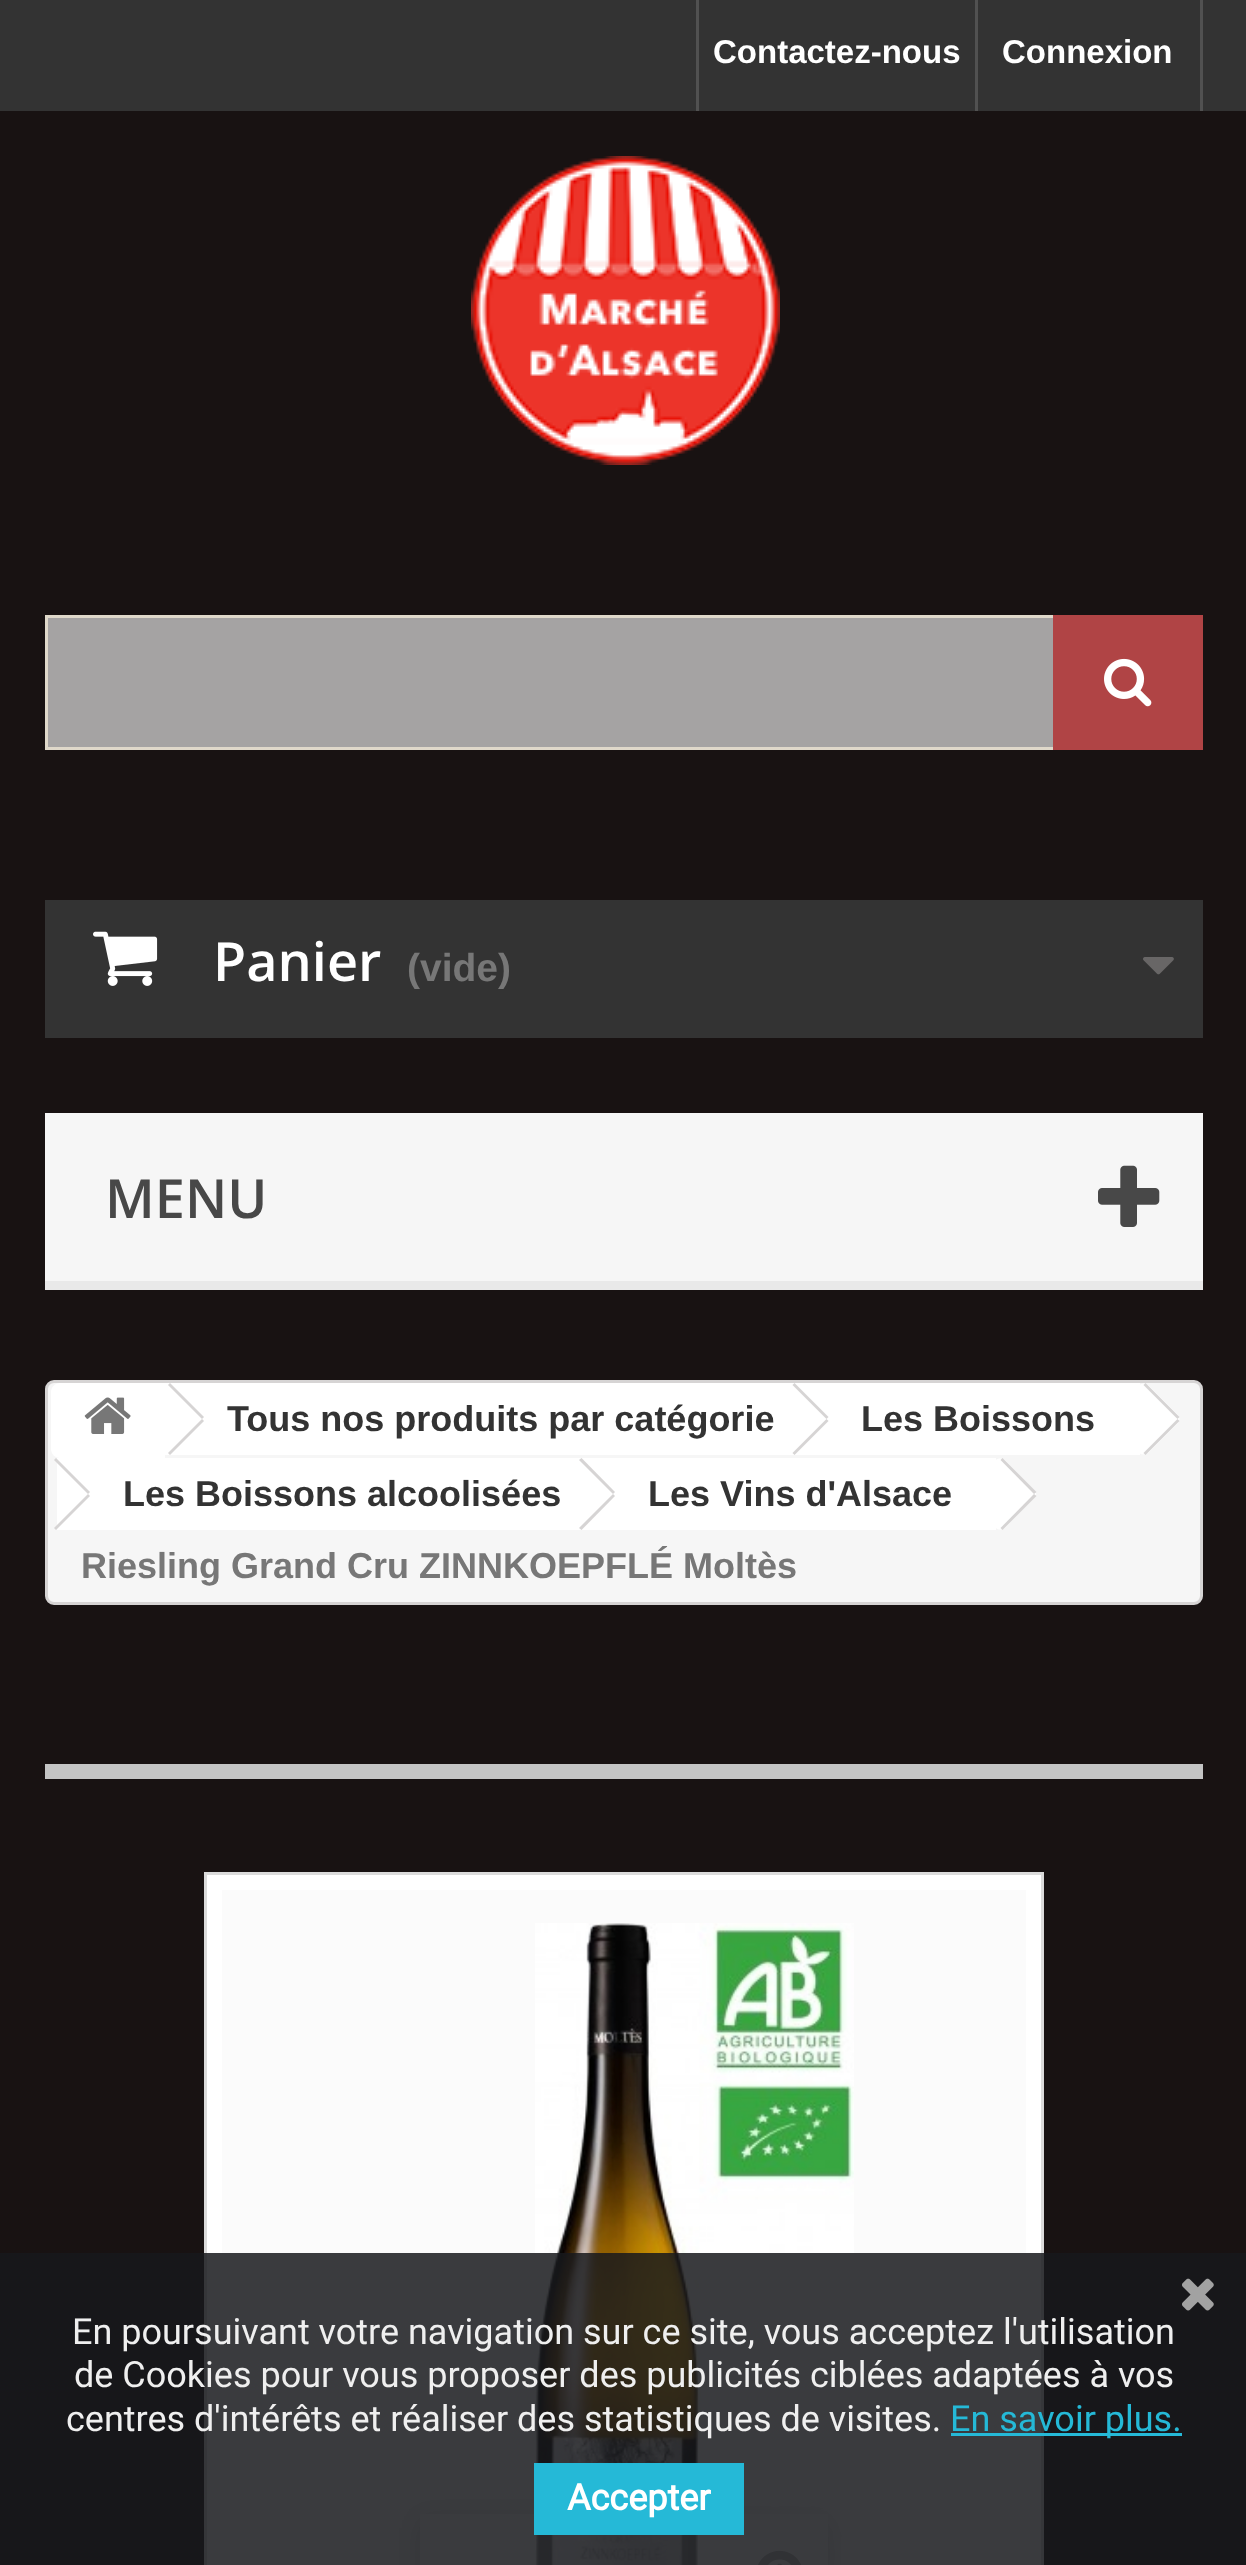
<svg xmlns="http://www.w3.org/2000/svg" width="1246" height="2565">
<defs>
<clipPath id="clip1"><path d="M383 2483h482v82h-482zm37 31h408v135h-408z" clip-rule="evenodd"/></clipPath>
</defs>
<rect width="100%" height="100%" fill="#181212"/>
<rect width="1246" height="111" fill="#333"/>
<rect x="696" width="3" height="111" fill="#515151"/>
<text x="713" y="63" style="font-family:Liberation Sans;font-size:33px;font-weight:bold;fill:#fff">Contactez-nous</text>
<rect x="1200" width="3" height="111" fill="#515151"/>
<rect x="975" width="3" height="111" fill="#515151"/>
<text x="1002" y="63" style="font-family:Liberation Sans;font-size:33px;font-weight:bold;fill:#fff">Connexion</text>
<image x="471" y="156" width="309" height="309" href="media/1.png"/>
<rect x="48" y="618" width="1005" height="129" fill="#a5a3a3"/>
<rect x="46.5" y="616.5" width="1155" height="132" fill="none" stroke="#dfd8ca" stroke-width="3"/>
<rect x="1053" y="615" width="150" height="135" fill="#b04445"/>
<image x="1104" y="658" width="48" height="49" href="media/2.png"/>
<rect x="45" y="900" width="1158" height="138" fill="#333"/>
<image x="93" y="931" width="65" height="55" href="media/3.png"/>
<text x="213" y="981" style="font-family:Open Sans;font-size:54px;font-weight:600;fill:#fff">Panier</text>
<text x="407" y="981" style="font-family:Liberation Sans;font-size:39px;font-weight:bold;fill:#777">(vide)</text>
<image x="1143" y="957" width="31" height="18" href="media/4.png"/>
<rect x="45" y="1113" width="1158" height="168" fill="#f6f6f6"/>
<rect x="45" y="1281" width="1158" height="9" fill="#e9e9e9"/>
<text x="105" y="1218" style="font-family:Open Sans;font-size:54px;font-weight:600;fill:#484848">MENU</text>
<image x="1098" y="1165" width="62" height="62" href="media/5.png"/>
<rect x="46.5" y="1381.5" width="1155" height="222" rx="7.5" fill="#f6f6f6" stroke="#d6d4d4" stroke-width="3"/>
<path d="M60 1383h105v75h-105c-5 0-9-4-9-9v-57c0-5 4-9 9-9z" fill="#fff"/>
<image x="84" y="1397" width="47" height="37" href="media/6.png"/>
<rect x="165" y="1383" width="630" height="72" fill="#fff"/>
<path d="M170 1383l34 34l-2 2l-34-34z" fill="#d6d4d4"/>
<path d="M202 1419l2 2l-34 34l-2-2z" fill="#d6d4d4"/>
<text x="227" y="1431" style="font-family:Liberation Sans;font-size:36px;font-weight:bold;fill:#333">Tous nos produits par catégorie</text>
<path d="M827 1385l29 30c3 2 3 6 0 8l-29 30c-3 2-6 2-9 0l-29-30c-3-2-3-6 0-8l29-30c3-2 6-2 9 0z" fill="#fff"/>
<rect x="795" y="1383" width="345" height="72" fill="#fff"/>
<path d="M794.5 1383l34 34l-2 2l-34-34z" fill="#d6d4d4"/>
<path d="M826.5 1419l2 2l-34 34l-2-2z" fill="#d6d4d4"/>
<text x="861" y="1431" style="font-family:Liberation Sans;font-size:36px;font-weight:bold;fill:#333">Les Boissons</text>
<path d="M1148 1385l30 30c2 2 2 6 0 8l-30 30c-3 2-6 2-9 0l-29-30c-3-2-3-6 0-8l29-30c3-2 6-2 9 0z" fill="#fff"/>
<path d="M1145.5 1383l34 34l-2 2l-34-34z" fill="#d6d4d4"/>
<path d="M1177.5 1419l2 2l-34 34l-2-2z" fill="#d6d4d4"/>
<rect x="57" y="1458" width="525" height="72" fill="#fff"/>
<path d="M56 1458l34 34l-2 2l-34-34z" fill="#d6d4d4"/>
<path d="M88 1494l2 2l-34 34l-2-2z" fill="#d6d4d4"/>
<text x="123" y="1506" style="font-family:Liberation Sans;font-size:36px;font-weight:bold;fill:#333">Les Boissons alcoolisées</text>
<path d="M613 1460l30 30c2 2 2 6 0 8l-30 30c-2 2-6 2-8 0l-30-30c-2-2-2-6 0-8l30-30c2-2 6-2 8 0z" fill="#fff"/>
<rect x="582" y="1458" width="414" height="72" fill="#fff"/>
<path d="M581.5 1458l33.5 34l-2 2l-34-34z" fill="#d6d4d4"/>
<path d="M613 1494l2 2l-33.5 34l-2.5-2z" fill="#d6d4d4"/>
<text x="648" y="1506" style="font-family:Liberation Sans;font-size:36px;font-weight:bold;fill:#333">Les Vins d'Alsace</text>
<path d="M1005 1460l29 30c3 2 3 6 0 8l-29 30c-3 2-7 2-9 0l-30-30c-2-2-2-6 0-8l30-30c2-2 6-2 9 0z" fill="#fff"/>
<path d="M1002.5 1458l34 34l-2.5 2l-33.5-34z" fill="#d6d4d4"/>
<path d="M1034 1494l2.5 2l-34 34l-2-2z" fill="#d6d4d4"/>
<text x="81" y="1578" style="font-family:Liberation Sans;font-size:36px;font-weight:bold;fill:#777">Riesling Grand Cru ZINNKOEPFLÉ Moltès</text>
<rect x="45" y="1764" width="1158" height="15" fill="#c4c4c4"/>
<rect x="205.5" y="1873.5" width="837" height="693" fill="#fff" stroke="#dbdbdb" stroke-width="3"/>
<rect x="222" y="1890" width="804" height="675" fill="#fbfbfb"/>
<image x="535" y="1923" width="319" height="642" href="media/7.png"/>
<g clip-path="url(#clip1)">
<rect x="420" y="2520" width="408" height="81" fill="#00000029" filter="blur(12px)"/>
</g>
<rect x="535" y="2514" width="164" height="51" fill="#ffffff80"/>
<image x="758" y="2550" width="43" height="15" href="media/8.png"/>
<rect y="2253" width="1246" height="312" fill="#17191cd9"/>
<image x="1182" y="2278" width="32" height="33" href="media/9.png"/>
<text x="72" y="2344" style="font-family:Roboto;font-size:36px;fill:#efefef">En poursuivant votre navigation sur ce site, vous acceptez l'utilisation</text>
<text x="74" y="2387" style="font-family:Roboto;font-size:36px;fill:#efefef">de Cookies pour vous proposer des publicités ciblées adaptées à vos</text>
<text x="66" y="2431" style="font-family:Roboto;font-size:36px;fill:#efefef">centres d'intérêts et réaliser des statistiques de visites.</text>
<rect x="951" y="2433" width="231" height="3" fill="#25b9d7"/>
<text x="950" y="2431" style="font-family:Roboto;font-size:36px;fill:#25b9d7">En savoir plus.</text>
<rect x="534" y="2463" width="210" height="72" fill="#25b9d7"/>
<text x="567" y="2510" style="font-family:Roboto;font-size:36px;font-weight:bold;fill:#fff">Accepter</text>
</svg>
